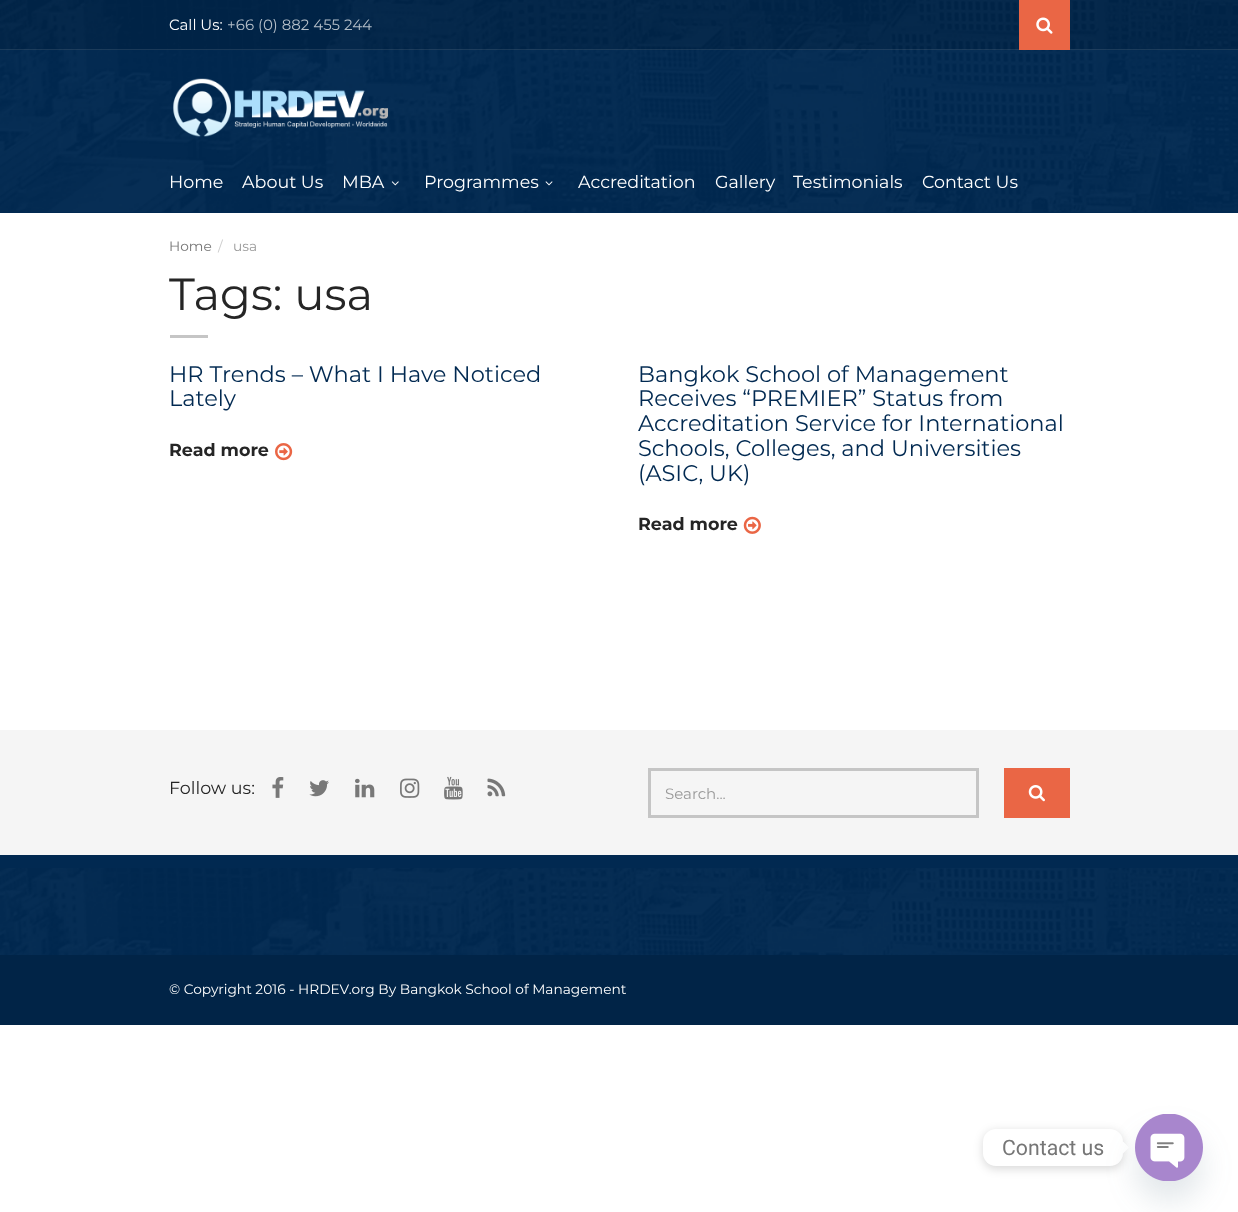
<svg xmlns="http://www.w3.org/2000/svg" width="1238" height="1212">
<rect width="100%" height="100%" fill="#fff"/>
<rect width="1238" height="213" fill="#012951"/>
<image x="0" y="0" width="1238" height="212" href="media/1.png"/>
<rect width="1238" height="50" fill="#0000001a"/>
<rect y="49" width="1238" height="1" fill="#ffffff1a"/>
<text x="169" y="30" style="font-family:Montserrat;font-size:15px;fill:#fff">Call Us:</text>
<text x="227" y="30" style="font-family:Montserrat;font-size:15px;fill:#b3bec8">+66 (0) 882 455 244</text>
<rect x="1019" width="51" height="50" fill="#ea6645"/>
<image x="1036" y="17" width="17" height="17" href="media/2.png"/>
<image x="173" y="78" width="215" height="59" href="media/3.png"/>
<text x="169" y="188" style="font-family:Montserrat;font-size:17.5px;fill:#fff">Home</text>
<text x="242" y="188" style="font-family:Montserrat;font-size:17.5px;fill:#fff">About Us</text>
<text x="342" y="188" style="font-family:Montserrat;font-size:17.5px;fill:#fff">MBA</text>
<image x="391" y="181" width="8" height="5" href="media/4.png"/>
<text x="424" y="188" style="font-family:Montserrat;font-size:17.5px;fill:#fff">Programmes</text>
<image x="545" y="181" width="8" height="5" href="media/5.png"/>
<text x="578" y="188" style="font-family:Montserrat;font-size:17.5px;fill:#fff">Accreditation</text>
<text x="715" y="188" style="font-family:Montserrat;font-size:17.5px;fill:#fff">Gallery</text>
<text x="793" y="188" style="font-family:Montserrat;font-size:17.5px;fill:#fff">Testimonials</text>
<text x="922" y="188" style="font-family:Montserrat;font-size:17.5px;fill:#fff">Contact Us</text>
<text x="169" y="251" style="font-family:Montserrat;font-size:13.75px;fill:#767676">Home</text>
<text x="218" y="251" style="font-family:Montserrat;font-size:13.75px;fill:#ccc">/</text>
<text x="233" y="251" style="font-family:Montserrat;font-size:13.75px;fill:#999">usa</text>
<text x="169" y="310" style="font-family:Montserrat;font-size:45px;fill:#252525">Tags: usa</text>
<rect x="170" y="335" width="38" height="3" fill="#c5c5c5"/>
<text x="169" y="382" style="font-family:Montserrat;font-size:22.5px;fill:#012951">HR Trends – What I Have Noticed</text>
<text x="169" y="406" style="font-family:Montserrat;font-size:22.5px;fill:#012951">Lately</text>
<text x="169" y="456" style="font-family:Montserrat;font-size:17.5px;font-weight:bold;fill:#252525">Read more</text>
<image x="275" y="443" width="18" height="18" href="media/6.png"/>
<text x="638" y="382" style="font-family:Montserrat;font-size:22.5px;fill:#012951">Bangkok School of Management</text>
<text x="638" y="406" style="font-family:Montserrat;font-size:22.5px;fill:#012951">Receives “PREMIER” Status from</text>
<text x="638" y="431" style="font-family:Montserrat;font-size:22.5px;fill:#012951">Accreditation Service for International</text>
<text x="638" y="456" style="font-family:Montserrat;font-size:22.5px;fill:#012951">Schools, Colleges, and Universities</text>
<text x="638" y="481" style="font-family:Montserrat;font-size:22.5px;fill:#012951">(ASIC, UK)</text>
<text x="638" y="530" style="font-family:Montserrat;font-size:17.5px;font-weight:bold;fill:#252525">Read more</text>
<image x="743" y="516" width="18" height="18" href="media/7.png"/>
<rect y="730" width="1238" height="125" fill="#f5f5f5"/>
<text x="169" y="794" style="font-family:Montserrat;font-size:17.5px;fill:#252525">Follow us:</text>
<image x="272" y="777" width="12" height="21" href="media/8.png"/>
<image x="309" y="780" width="20" height="17" href="media/9.png"/>
<image x="355" y="778" width="20" height="20" href="media/10.png"/>
<image x="400" y="778" width="20" height="20" href="media/11.png"/>
<image x="444" y="776" width="19" height="24" href="media/12.png"/>
<image x="487" y="778" width="19" height="19" href="media/13.png"/>
<rect x="649.5" y="769.5" width="328" height="47" fill="none" stroke="#c5c5c5" stroke-width="3"/>
<text x="665" y="799" style="font-family:Montserrat;font-size:15px;fill:#999">Search...</text>
<rect x="1004" y="768" width="66" height="50" fill="#ea6645"/>
<image x="1028" y="785" width="17" height="17" href="media/14.png"/>
<rect y="855" width="1238" height="100" fill="#012951"/>
<image x="0" y="868" width="1238" height="87" href="media/15.png"/>
<rect y="955" width="1238" height="70" fill="#012447"/>
<text x="169" y="994" style="font-family:Montserrat;font-size:13.75px;fill:#fff">© Copyright 2016 - HRDEV.org By Bangkok School of Management</text>
<rect x="983" y="1131" width="140" height="38" rx="13" fill="#00000026" filter="blur(5px)"/>
<rect x="983" y="1129" width="140" height="37" rx="13" fill="#fff"/>
<text x="1002" y="1155" style="font-family:Roboto;font-size:21.25px;fill:#767676">Contact us</text>
<path d="M1122.5 1154v-13l6.5 6.5z" fill="#fff"/>
<rect x="1135" y="1134" width="68" height="67" rx="33.5" fill="#49687e29" filter="blur(15px)"/>
<image x="1135" y="1114" width="68" height="67" href="media/16.png"/>
</svg>
